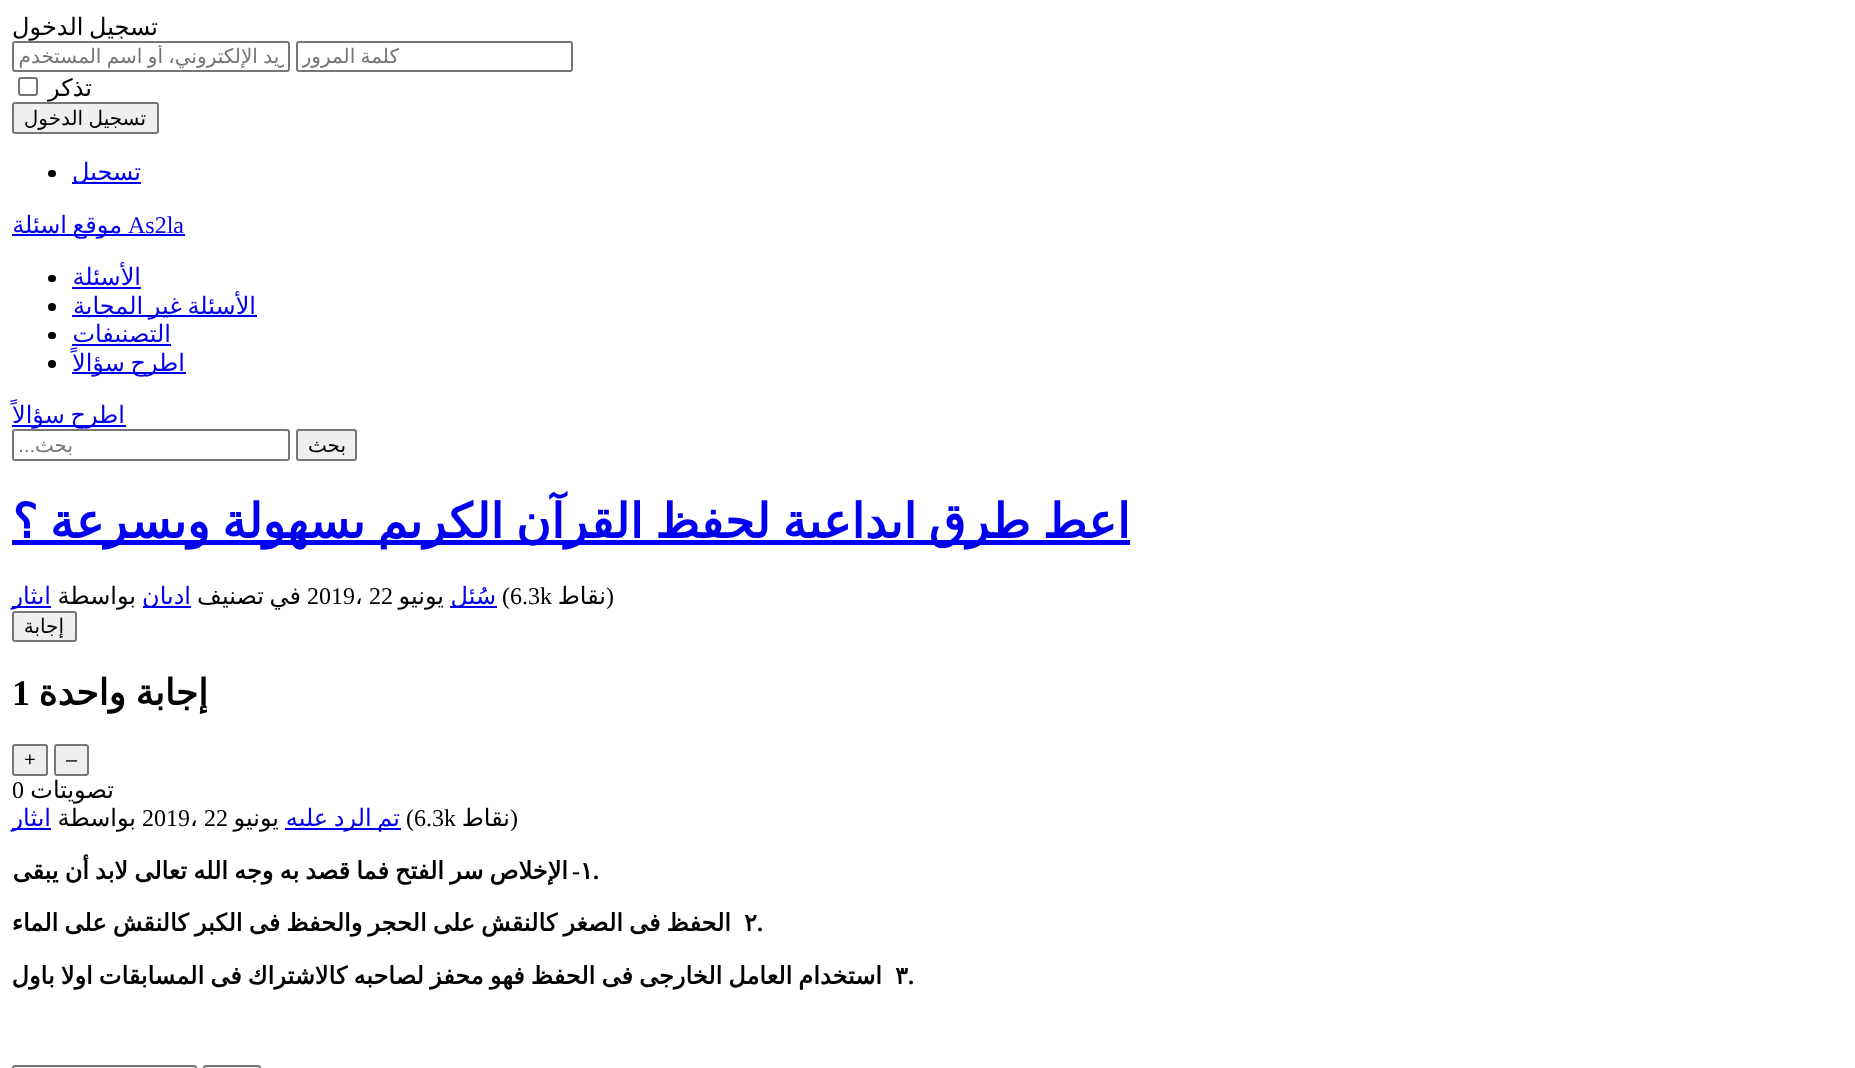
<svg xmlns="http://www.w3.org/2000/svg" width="1855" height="1068">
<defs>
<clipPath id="clip1"><rect x="302" y="45" width="265" height="23"/></clipPath>
<clipPath id="clip2"><rect x="18" y="45" width="266" height="23"/></clipPath>
</defs>
<rect width="100%" height="100%" fill="#fff"/>
<text x="158" y="35" word-spacing="-2" style="font-family:DejaVu Sans;font-size:24px;direction:rtl;fill:#000">تسجيل الدخول</text>
<rect x="297" y="42" width="275" height="29" rx="2" fill="none" stroke="#767676" stroke-width="2"/>
<g clip-path="url(#clip1)">
<text x="399" y="63" word-spacing="-1" style="font-family:DejaVu Sans;font-size:20px;direction:rtl;fill:#757575">كلمة المرور</text>
</g>
<rect x="13" y="42" width="276" height="29" rx="2" fill="none" stroke="#767676" stroke-width="2"/>
<g clip-path="url(#clip2)">
<text x="308" y="63" word-spacing="-1" style="font-family:DejaVu Sans;font-size:20px;direction:rtl;fill:#757575">البريد الإلكتروني، أو اسم المستخدم</text>
</g>
<text x="92" y="96" style="font-family:DejaVu Sans;font-size:24px;direction:rtl;fill:#000">تذكر</text>
<rect x="19" y="78" width="18" height="17" rx="2" fill="none" stroke="#767676" stroke-width="2"/>
<rect x="13" y="103" width="145" height="30" rx="2" fill="#efefef" stroke="#767676" stroke-width="2"/>
<text x="146" y="125" word-spacing="-1" style="font-family:DejaVu Sans;font-size:20px;direction:rtl;fill:#000">تسجيل الدخول</text>
<rect x="72" y="182" width="69" height="2" fill="#00e"/>
<text x="141" y="180" style="font-family:DejaVu Sans;font-size:24px;direction:rtl;fill:#00e">تسجيل</text>
<rect x="48" y="170" width="8" height="7" rx="3.5" fill="#000"/>
<text x="128" y="233" style="font-family:Liberation Serif;font-size:24px;fill:#00e">As2la</text>
<rect x="12" y="234" width="173" height="2" fill="#00e"/>
<text x="122" y="233" style="font-family:DejaVu Sans;font-size:24px;direction:rtl;fill:#00e">موقع</text>
<text x="67" y="233" style="font-family:DejaVu Sans;font-size:24px;direction:rtl;fill:#00e">اسئلة</text>
<text x="141" y="285" style="font-family:DejaVu Sans;font-size:24px;direction:rtl;fill:#00e">الأسئلة</text>
<rect x="72" y="287" width="69" height="2" fill="#00e"/>
<rect x="48" y="275" width="8" height="7" rx="3.5" fill="#000"/>
<rect x="72" y="315" width="185" height="2" fill="#00e"/>
<text x="256" y="314" word-spacing="-2" style="font-family:DejaVu Sans;font-size:24px;direction:rtl;fill:#00e">الأسئلة غير المجابة</text>
<circle cx="52" cy="307" r="4" fill="#000"/>
<rect x="72" y="344" width="99" height="2" fill="#00e"/>
<text x="171" y="342" style="font-family:DejaVu Sans;font-size:24px;direction:rtl;fill:#00e">التصنيفات</text>
<rect x="48" y="332" width="8" height="7" rx="3.5" fill="#000"/>
<rect x="72" y="372" width="114" height="2" fill="#00e"/>
<text x="185" y="371" word-spacing="-2" style="font-family:DejaVu Sans;font-size:24px;direction:rtl;fill:#00e">اطرح سؤالاً</text>
<circle cx="52" cy="364" r="4" fill="#000"/>
<rect x="12" y="425" width="114" height="2" fill="#00e"/>
<text x="125" y="423" word-spacing="-2" style="font-family:DejaVu Sans;font-size:24px;direction:rtl;fill:#00e">اطرح سؤالاً</text>
<rect x="297" y="430" width="59" height="30" rx="2" fill="#efefef" stroke="#767676" stroke-width="2"/>
<text x="346" y="452" style="font-family:DejaVu Sans;font-size:20px;direction:rtl;fill:#000">بحث</text>
<rect x="13" y="430" width="276" height="30" rx="2" fill="none" stroke="#767676" stroke-width="2"/>
<text x="73" y="452" style="font-family:DejaVu Sans;font-size:20px;direction:rtl;fill:#757575">بحث</text>
<text x="35" y="452" style="font-family:Liberation Sans;font-size:20px;direction:rtl;fill:#757575">...</text>
<rect x="12" y="540" width="1118" height="5" fill="#00e"/>
<text x="1130" y="538" word-spacing="-3.25" style="font-family:DejaVu Sans;font-size:48px;font-weight:bold;direction:rtl;fill:#00e">اعط طرق ابداعية لحفظ القرآن الكريم بسهولة وبسرعة ؟</text>
<text x="606" y="604" style="font-family:Liberation Serif;font-size:24px;fill:#000">)</text>
<text x="606" y="604" style="font-family:DejaVu Sans;font-size:24px;direction:rtl;fill:#000">نقاط</text>
<text x="502" y="604" style="font-family:Liberation Serif;font-size:24px;fill:#000">(6.3k</text>
<rect x="450" y="606" width="47" height="2" fill="#00e"/>
<text x="496" y="604" style="font-family:DejaVu Sans;font-size:24px;direction:rtl;fill:#00e">سُئل</text>
<text x="444" y="604" style="font-family:DejaVu Sans;font-size:24px;direction:rtl;fill:#000">يونيو</text>
<text x="369" y="604" style="font-family:Liberation Serif;font-size:24px;fill:#000">22</text>
<text x="355" y="604" style="font-family:DejaVu Sans;font-size:24px;fill:#000">،</text>
<text x="307" y="604" style="font-family:Liberation Serif;font-size:24px;fill:#000">2019</text>
<text x="301" y="604" word-spacing="-2" style="font-family:DejaVu Sans;font-size:24px;direction:rtl;fill:#000">في تصنيف</text>
<rect x="143" y="606" width="48" height="2" fill="#00e"/>
<text x="191" y="604" style="font-family:DejaVu Sans;font-size:24px;direction:rtl;fill:#00e">اديان</text>
<text x="136" y="604" style="font-family:DejaVu Sans;font-size:24px;direction:rtl;fill:#000">بواسطة</text>
<rect x="12" y="606" width="39" height="2" fill="#00e"/>
<text x="51" y="604" style="font-family:DejaVu Sans;font-size:24px;direction:rtl;fill:#00e">ايثار</text>
<rect x="13" y="612" width="63" height="29" rx="2" fill="#efefef" stroke="#767676" stroke-width="2"/>
<text x="64" y="633" style="font-family:DejaVu Sans;font-size:20px;direction:rtl;fill:#000">إجابة</text>
<text x="208" y="705" word-spacing="-2" style="font-family:DejaVu Sans;font-size:36px;font-weight:bold;direction:rtl;fill:#000">إجابة واحدة</text>
<text x="12" y="705" style="font-family:Liberation Serif;font-size:36px;font-weight:bold;fill:#000">1</text>
<rect x="55" y="745" width="33" height="30" rx="2" fill="#efefef" stroke="#767676" stroke-width="2"/>
<text x="66" y="766" style="font-family:Liberation Sans;font-size:20px;fill:#000">–</text>
<rect x="13" y="745" width="34" height="30" rx="2" fill="#efefef" stroke="#767676" stroke-width="2"/>
<text x="24" y="766" style="font-family:Liberation Sans;font-size:20px;fill:#000">+</text>
<text x="114" y="798" style="font-family:DejaVu Sans;font-size:24px;direction:rtl;fill:#000">تصويتات</text>
<text x="12" y="798" style="font-family:Liberation Serif;font-size:24px;fill:#000">0</text>
<text x="510" y="826" style="font-family:Liberation Serif;font-size:24px;fill:#000">)</text>
<text x="510" y="826" style="font-family:DejaVu Sans;font-size:24px;direction:rtl;fill:#000">نقاط</text>
<text x="406" y="826" style="font-family:Liberation Serif;font-size:24px;fill:#000">(6.3k</text>
<rect x="285" y="828" width="116" height="2" fill="#00e"/>
<text x="400" y="826" word-spacing="-2" style="font-family:DejaVu Sans;font-size:24px;direction:rtl;fill:#00e">تم الرد عليه</text>
<text x="279" y="826" style="font-family:DejaVu Sans;font-size:24px;direction:rtl;fill:#000">يونيو</text>
<text x="204" y="826" style="font-family:Liberation Serif;font-size:24px;fill:#000">22</text>
<text x="190" y="826" style="font-family:DejaVu Sans;font-size:24px;fill:#000">،</text>
<text x="142" y="826" style="font-family:Liberation Serif;font-size:24px;fill:#000">2019</text>
<text x="136" y="826" style="font-family:DejaVu Sans;font-size:24px;direction:rtl;fill:#000">بواسطة</text>
<rect x="12" y="828" width="39" height="2" fill="#00e"/>
<text x="51" y="826" style="font-family:DejaVu Sans;font-size:24px;direction:rtl;fill:#00e">ايثار</text>
<text x="580" y="879" style="font-family:DejaVu Sans;font-size:24px;font-weight:bold;fill:#000">١</text>
<text x="568" y="879" word-spacing="-1.5" style="font-family:DejaVu Sans;font-size:24px;font-weight:bold;direction:rtl;fill:#000">الإخلاص سر الفتح فما قصد به وجه الله تعالى لابد أن يبقى</text>
<text x="580" y="879" style="font-family:Liberation Serif;font-size:24px;font-weight:bold;direction:rtl;fill:#000">-</text>
<text x="593" y="879" style="font-family:Liberation Serif;font-size:24px;font-weight:bold;fill:#000">.</text>
<text x="757" y="931" style="font-family:Liberation Serif;font-size:24px;font-weight:bold;fill:#000">.</text>
<text x="744" y="931" style="font-family:DejaVu Sans;font-size:24px;font-weight:bold;fill:#000">٢</text>
<text x="731" y="931" word-spacing="-1.5" style="font-family:DejaVu Sans;font-size:24px;font-weight:bold;direction:rtl;fill:#000">الحفظ فى الصغر كالنقش على الحجر والحفظ فى الكبر كالنقش على الماء</text>
<text x="908" y="984" style="font-family:Liberation Serif;font-size:24px;font-weight:bold;fill:#000">.</text>
<text x="895" y="984" style="font-family:DejaVu Sans;font-size:24px;font-weight:bold;fill:#000">٣</text>
<text x="882" y="984" word-spacing="-1.5" style="font-family:DejaVu Sans;font-size:24px;font-weight:bold;direction:rtl;fill:#000">استخدام العامل الخارجى فى الحفظ فهو محفز لصاحبه كالاشتراك فى المسابقات اولا باول</text>
<rect x="204" y="1066" width="56" height="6" rx="2" fill="#efefef" stroke="#767676" stroke-width="2"/>
<rect x="13" y="1066" width="183" height="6" rx="2" fill="#efefef" stroke="#767676" stroke-width="2"/>
</svg>
